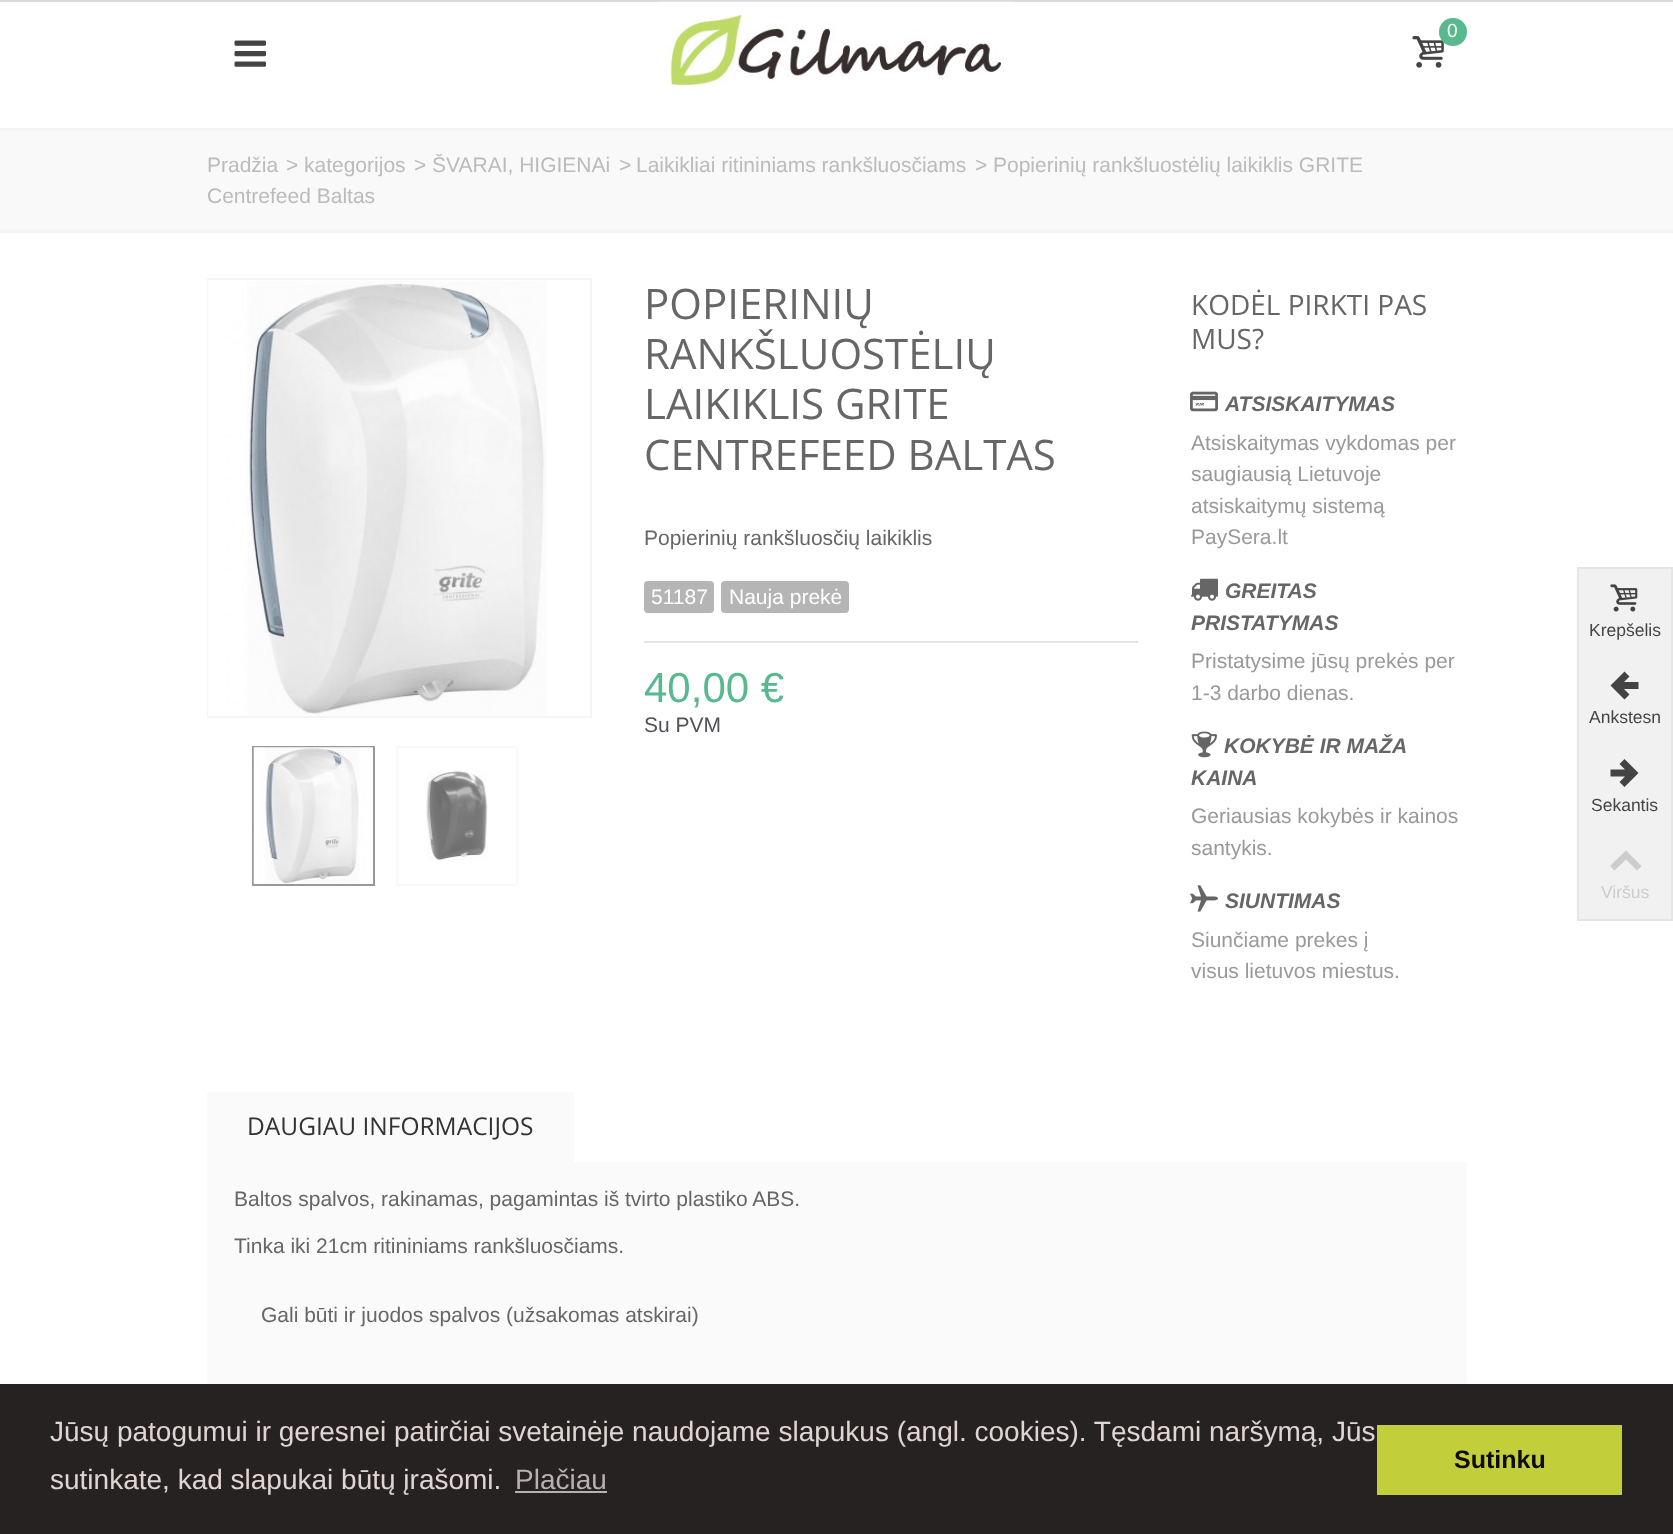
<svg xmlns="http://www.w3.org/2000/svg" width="1673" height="1534">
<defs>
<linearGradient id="g1" gradientUnits="userSpaceOnUse" x1="837" y1="128" x2="837" y2="233"><stop offset="0" stop-color="#f2f2f2"/><stop offset="0.05" stop-color="#f9f9f9"/><stop offset="0.95" stop-color="#f9f9f9"/><stop offset="1" stop-color="#f2f2f2"/></linearGradient>
</defs>
<rect width="100%" height="100%" fill="#fff"/>
<rect width="1673" height="2" fill="#dadada"/>
<image x="660" y="1" width="353" height="86" href="media/1.png"/>
<image x="1412" y="36" width="32" height="32" href="media/2.png"/>
<circle cx="1453" cy="32" r="14" fill="#59b98e"/>
<text x="1447" y="37" style="font-family:Liberation Sans;font-size:19px;fill:#fff">0</text>
<image x="234" y="40" width="32" height="27" href="media/3.png"/>
<rect y="128" width="1673" height="105" fill="url(#g1)"/>
<text x="207" y="172" style="font-family:Liberation Sans;font-size:21px;fill:#bbb">Pradžia</text>
<text x="286" y="172" style="font-family:Liberation Sans;font-size:21px;fill:#bbb">&gt;</text>
<text x="304" y="172" style="font-family:Liberation Sans;font-size:21px;fill:#bbb">kategorijos</text>
<text x="414" y="172" style="font-family:Liberation Sans;font-size:21px;fill:#bbb">&gt;</text>
<text x="432" y="172" style="font-family:Liberation Sans;font-size:21px;fill:#bbb">ŠVARAI, HIGIENAi</text>
<text x="619" y="172" style="font-family:Liberation Sans;font-size:21px;fill:#bbb">&gt;</text>
<text x="636" y="172" style="font-family:Liberation Sans;font-size:21px;fill:#bbb">Laikikliai ritininiams rankšluosčiams</text>
<text x="975" y="172" style="font-family:Liberation Sans;font-size:21px;fill:#bbb">&gt;</text>
<text x="993" y="172" style="font-family:Liberation Sans;font-size:21px;fill:#bbb">Popierinių rankšluostėlių laikiklis GRITE</text>
<text x="207" y="203" style="font-family:Liberation Sans;font-size:21px;fill:#bbb">Centrefeed Baltas</text>
<rect x="208" y="279" width="383" height="438" fill="none" stroke="#f5f5f5" stroke-width="2"/>
<image x="208" y="280" width="339" height="436" href="media/4.png"/>
<rect x="253" y="747" width="121" height="138" fill="none" stroke="#999" stroke-width="2"/>
<image x="253" y="747" width="120" height="137" href="media/5.png"/>
<rect x="397" y="747" width="120" height="138" fill="none" stroke="#f9f9f9" stroke-width="2"/>
<image x="426" y="771" width="62" height="90" href="media/6.png"/>
<text x="644" y="319" style="font-family:Open Sans;font-size:42px;fill:#666">POPIERINIŲ</text>
<text x="644" y="369" style="font-family:Open Sans;font-size:42px;fill:#666">RANKŠLUOSTĖLIŲ</text>
<text x="644" y="419" style="font-family:Open Sans;font-size:42px;fill:#666">LAIKIKLIS GRITE</text>
<text x="644" y="470" style="font-family:Open Sans;font-size:42px;fill:#666">CENTREFEED BALTAS</text>
<text x="644" y="545" style="font-family:Liberation Sans;font-size:21px;fill:#666">Popierinių rankšluosčių laikiklis</text>
<rect x="644" y="581" width="70" height="32" rx="4" fill="#b5b5b5"/>
<text x="651" y="604" style="font-family:Liberation Sans;font-size:21px;fill:#fff">51187</text>
<rect x="721" y="581" width="128" height="32" rx="4" fill="#b5b5b5"/>
<text x="729" y="604" style="font-family:Liberation Sans;font-size:21px;fill:#fff">Nauja prekė</text>
<rect x="644" y="641" width="494" height="2" fill="#e5e5e5"/>
<text x="644" y="702" style="font-family:Liberation Sans;font-size:42px;fill:#59b98e">40,00 €</text>
<text x="644" y="732" style="font-family:Liberation Sans;font-size:21px;fill:#554f58">Su PVM</text>
<text x="1191" y="315" style="font-family:Open Sans;font-size:28px;fill:#666">KODĖL PIRKTI PAS</text>
<text x="1191" y="349" style="font-family:Open Sans;font-size:28px;fill:#666">MUS?</text>
<image x="1190" y="391" width="28" height="21" href="media/7.png"/>
<text x="1225" y="411" style="font-family:Liberation Sans;font-size:21px;font-weight:bold;font-style:italic;fill:#666">ATSISKAITYMAS</text>
<text x="1191" y="450" style="font-family:Liberation Sans;font-size:21px;fill:#999">Atsiskaitymas vykdomas per</text>
<text x="1191" y="481" style="font-family:Liberation Sans;font-size:21px;fill:#999">saugiausią Lietuvoje</text>
<text x="1191" y="513" style="font-family:Liberation Sans;font-size:21px;fill:#999">atsiskaitymų sistemą</text>
<text x="1191" y="544" style="font-family:Liberation Sans;font-size:21px;fill:#999">PaySera.lt</text>
<image x="1191" y="578" width="27" height="23" href="media/8.png"/>
<text x="1225" y="598" style="font-family:Liberation Sans;font-size:21px;font-weight:bold;font-style:italic;fill:#666">GREITAS</text>
<text x="1191" y="630" style="font-family:Liberation Sans;font-size:21px;font-weight:bold;font-style:italic;fill:#666">PRISTATYMAS</text>
<text x="1191" y="668" style="font-family:Liberation Sans;font-size:21px;fill:#999">Pristatysime jūsų prekės per</text>
<text x="1191" y="700" style="font-family:Liberation Sans;font-size:21px;fill:#999">1-3 darbo dienas.</text>
<image x="1191" y="731" width="26" height="27" href="media/9.png"/>
<text x="1224" y="753" style="font-family:Liberation Sans;font-size:21px;font-weight:bold;font-style:italic;fill:#666">KOKYBĖ IR MAŽA</text>
<text x="1191" y="785" style="font-family:Liberation Sans;font-size:21px;font-weight:bold;font-style:italic;fill:#666">KAINA</text>
<text x="1191" y="823" style="font-family:Liberation Sans;font-size:21px;fill:#999">Geriausias kokybės ir kainos</text>
<text x="1191" y="855" style="font-family:Liberation Sans;font-size:21px;fill:#999">santykis.</text>
<image x="1190" y="885" width="28" height="27" href="media/10.png"/>
<text x="1225" y="908" style="font-family:Liberation Sans;font-size:21px;font-weight:bold;font-style:italic;fill:#666">SIUNTIMAS</text>
<text x="1191" y="947" style="font-family:Liberation Sans;font-size:21px;fill:#999">Siunčiame prekes į</text>
<text x="1191" y="978" style="font-family:Liberation Sans;font-size:21px;fill:#999">visus lietuvos miestus.</text>
<rect x="207" y="1092" width="367" height="70" fill="#fafafa"/>
<text x="247" y="1135" style="font-family:Open Sans;font-size:24.5px;fill:#333">DAUGIAU INFORMACIJOS</text>
<rect x="207" y="1162" width="1260" height="222" fill="#fafafa"/>
<text x="234" y="1206" style="font-family:Liberation Sans;font-size:21px;fill:#666">Baltos spalvos, rakinamas, pagamintas iš tvirto plastiko ABS.</text>
<text x="234" y="1253" style="font-family:Liberation Sans;font-size:21px;fill:#666">Tinka iki 21cm ritininiams rankšluosčiams.</text>
<text x="261" y="1322" style="font-family:Liberation Sans;font-size:21px;fill:#666">Gali būti ir juodos spalvos (užsakomas atskirai)</text>
<rect x="1579" y="569" width="92" height="350" fill="#f1f1f1"/>
<rect x="1577" y="567" width="96" height="2" fill="#e5e5e5"/>
<rect x="1671" y="567" width="2" height="354" fill="#e5e5e5"/>
<rect x="1577" y="919" width="96" height="2" fill="#e5e5e5"/>
<rect x="1577" y="569" width="2" height="350" fill="#e5e5e5"/>
<image x="1610" y="584" width="28" height="28" href="media/11.png"/>
<text x="1589" y="636" style="font-family:Liberation Sans;font-size:17.5px;fill:#444">Krepšelis</text>
<path d="M1624.5 699.5l-14-14l14-14l5 5l-5.5 5.5h14.5v7h-14.5l5.5 5.5z" fill="#444"/>
<text x="1589" y="723" style="font-family:Liberation Sans;font-size:17.5px;fill:#444">Ankstesn</text>
<path d="M1624.5 759l14 14l-14 14l-5-5l5.5-5.5h-14.5v-7h14.5l-5.5-5.5z" fill="#444"/>
<text x="1591" y="811" style="font-family:Liberation Sans;font-size:17.5px;fill:#444">Sekantis</text>
<path d="M1610 866l16-15.5l15.5 15.5l-4.5 4.5l-11-11l-11.5 11z" fill="#ccc"/>
<text x="1601" y="898" style="font-family:Liberation Sans;font-size:17.5px;fill:#ccc">Viršus</text>
<rect y="1384" width="1673" height="150" fill="#262222"/>
<text x="50" y="1441" style="font-family:Liberation Sans;font-size:28px;fill:#e0d4d4">Jūsų patogumui ir geresnei patirčiai svetainėje naudojame slapukus (angl. cookies). Tęsdami naršymą, Jūs</text>
<text x="50" y="1489" style="font-family:Liberation Sans;font-size:28px;fill:#e0d4d4">sutinkate, kad slapukai būtų įrašomi.</text>
<text x="515" y="1489" style="font-family:Liberation Sans;font-size:28px;fill:#bbb0b0">Plačiau</text>
<rect x="515" y="1491" width="92" height="2" fill="#bbb0b0"/>
<rect x="1377" y="1425" width="245" height="70" fill="#c3cf3a"/>
<text x="1454" y="1468" style="font-family:Liberation Sans;font-size:25px;font-weight:bold;fill:#0d0b0b">Sutinku</text>
</svg>
